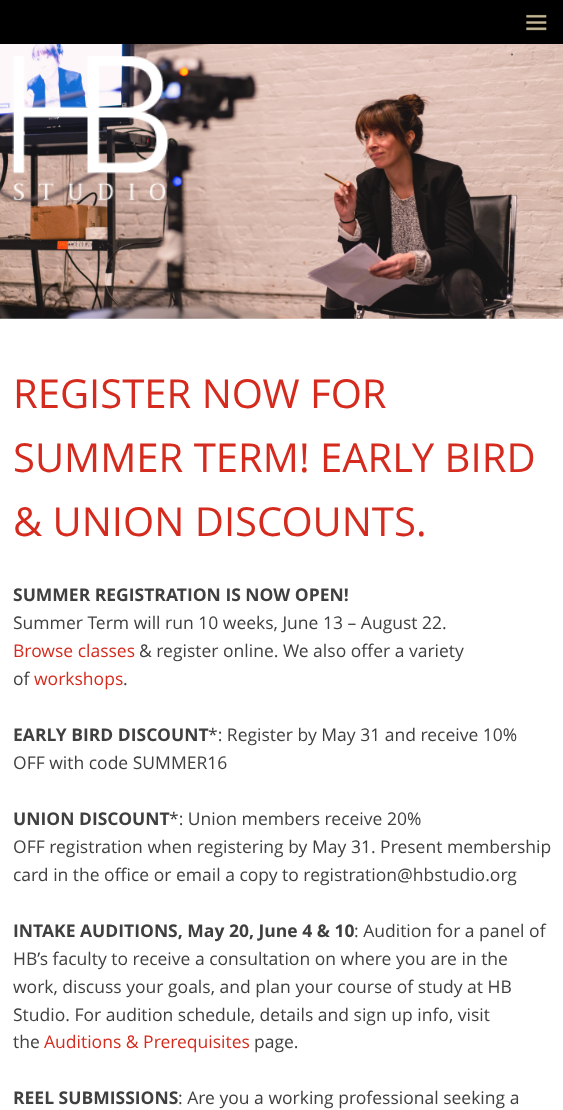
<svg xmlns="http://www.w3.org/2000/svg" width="563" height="1110">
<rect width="100%" height="100%" fill="#fff"/>
<rect width="563" height="44" fill="#000"/>
<image x="526" y="14" width="21" height="17" href="media/1.png"/>
<image x="0" y="44" width="563" height="275" href="media/2.png"/>
<image x="12" y="56" width="157" height="145" href="media/3.png"/>
<text x="13" y="408" style="font-family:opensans;font-size:40px;fill:#d52b1e">REGISTER NOW FOR</text>
<text x="13" y="472" style="font-family:opensans;font-size:40px;fill:#d52b1e">SUMMER TERM! EARLY BIRD</text>
<text x="13" y="536" style="font-family:opensans;font-size:40px;fill:#d52b1e">&amp; UNION DISCOUNTS.</text>
<text x="13" y="601" style="font-family:opensans;font-size:17.5px;font-weight:bold;fill:#404040">SUMMER REGISTRATION IS NOW OPEN!</text>
<text x="13" y="629" style="font-family:opensans;font-size:17.5px;fill:#404040">Summer Term will run 10 weeks, June 13 – August 22.</text>
<text x="13" y="657" style="font-family:opensans;font-size:17.5px;fill:#d52b1e">Browse classes</text>
<text x="139" y="657" style="font-family:opensans;font-size:17.5px;fill:#404040">&amp; register online. We also offer a variety</text>
<text x="13" y="685" style="font-family:opensans;font-size:17.5px;fill:#404040">of</text>
<text x="34" y="685" style="font-family:opensans;font-size:17.5px;fill:#d52b1e">workshops</text>
<text x="123" y="685" style="font-family:opensans;font-size:17.5px;fill:#404040">.</text>
<text x="13" y="741" style="font-family:opensans;font-size:17.5px;font-weight:bold;fill:#404040">EARLY BIRD DISCOUNT</text>
<text x="208" y="741" style="font-family:opensans;font-size:17.5px;fill:#404040">*: Register by May 31 and receive 10%</text>
<text x="13" y="769" style="font-family:opensans;font-size:17.5px;fill:#404040">OFF with code SUMMER16</text>
<text x="13" y="825" style="font-family:opensans;font-size:17.5px;font-weight:bold;fill:#404040">UNION DISCOUNT</text>
<text x="169" y="825" style="font-family:opensans;font-size:17.5px;fill:#404040">*: Union members receive 20%</text>
<text x="13" y="853" style="font-family:opensans;font-size:17.5px;fill:#404040">OFF registration when registering by May 31. Present membership</text>
<text x="13" y="881" style="font-family:opensans;font-size:17.5px;fill:#404040">card in the office or email a copy to registration@hbstudio.org</text>
<text x="13" y="937" style="font-family:opensans;font-size:17.5px;font-weight:bold;fill:#404040">INTAKE AUDITIONS, May 20, June 4 &amp; 10</text>
<text x="354" y="937" style="font-family:opensans;font-size:17.5px;fill:#404040">: Audition for a panel of</text>
<text x="13" y="965" style="font-family:opensans;font-size:17.5px;fill:#404040">HB’s faculty to receive a consultation on where you are in the</text>
<text x="13" y="993" style="font-family:opensans;font-size:17.5px;fill:#404040">work, discuss your goals, and plan your course of study at HB</text>
<text x="13" y="1021" style="font-family:opensans;font-size:17.5px;fill:#404040">Studio. For audition schedule, details and sign up info, visit</text>
<text x="13" y="1048" style="font-family:opensans;font-size:17.5px;fill:#404040">the</text>
<text x="44" y="1048" style="font-family:opensans;font-size:17.5px;fill:#d52b1e">Auditions &amp; Prerequisites</text>
<text x="254" y="1048" style="font-family:opensans;font-size:17.5px;fill:#404040">page.</text>
<text x="13" y="1104" style="font-family:opensans;font-size:17.5px;font-weight:bold;fill:#404040">REEL SUBMISSIONS</text>
<text x="178" y="1104" style="font-family:opensans;font-size:17.5px;fill:#404040">: Are you a working professional seeking a</text>
</svg>
